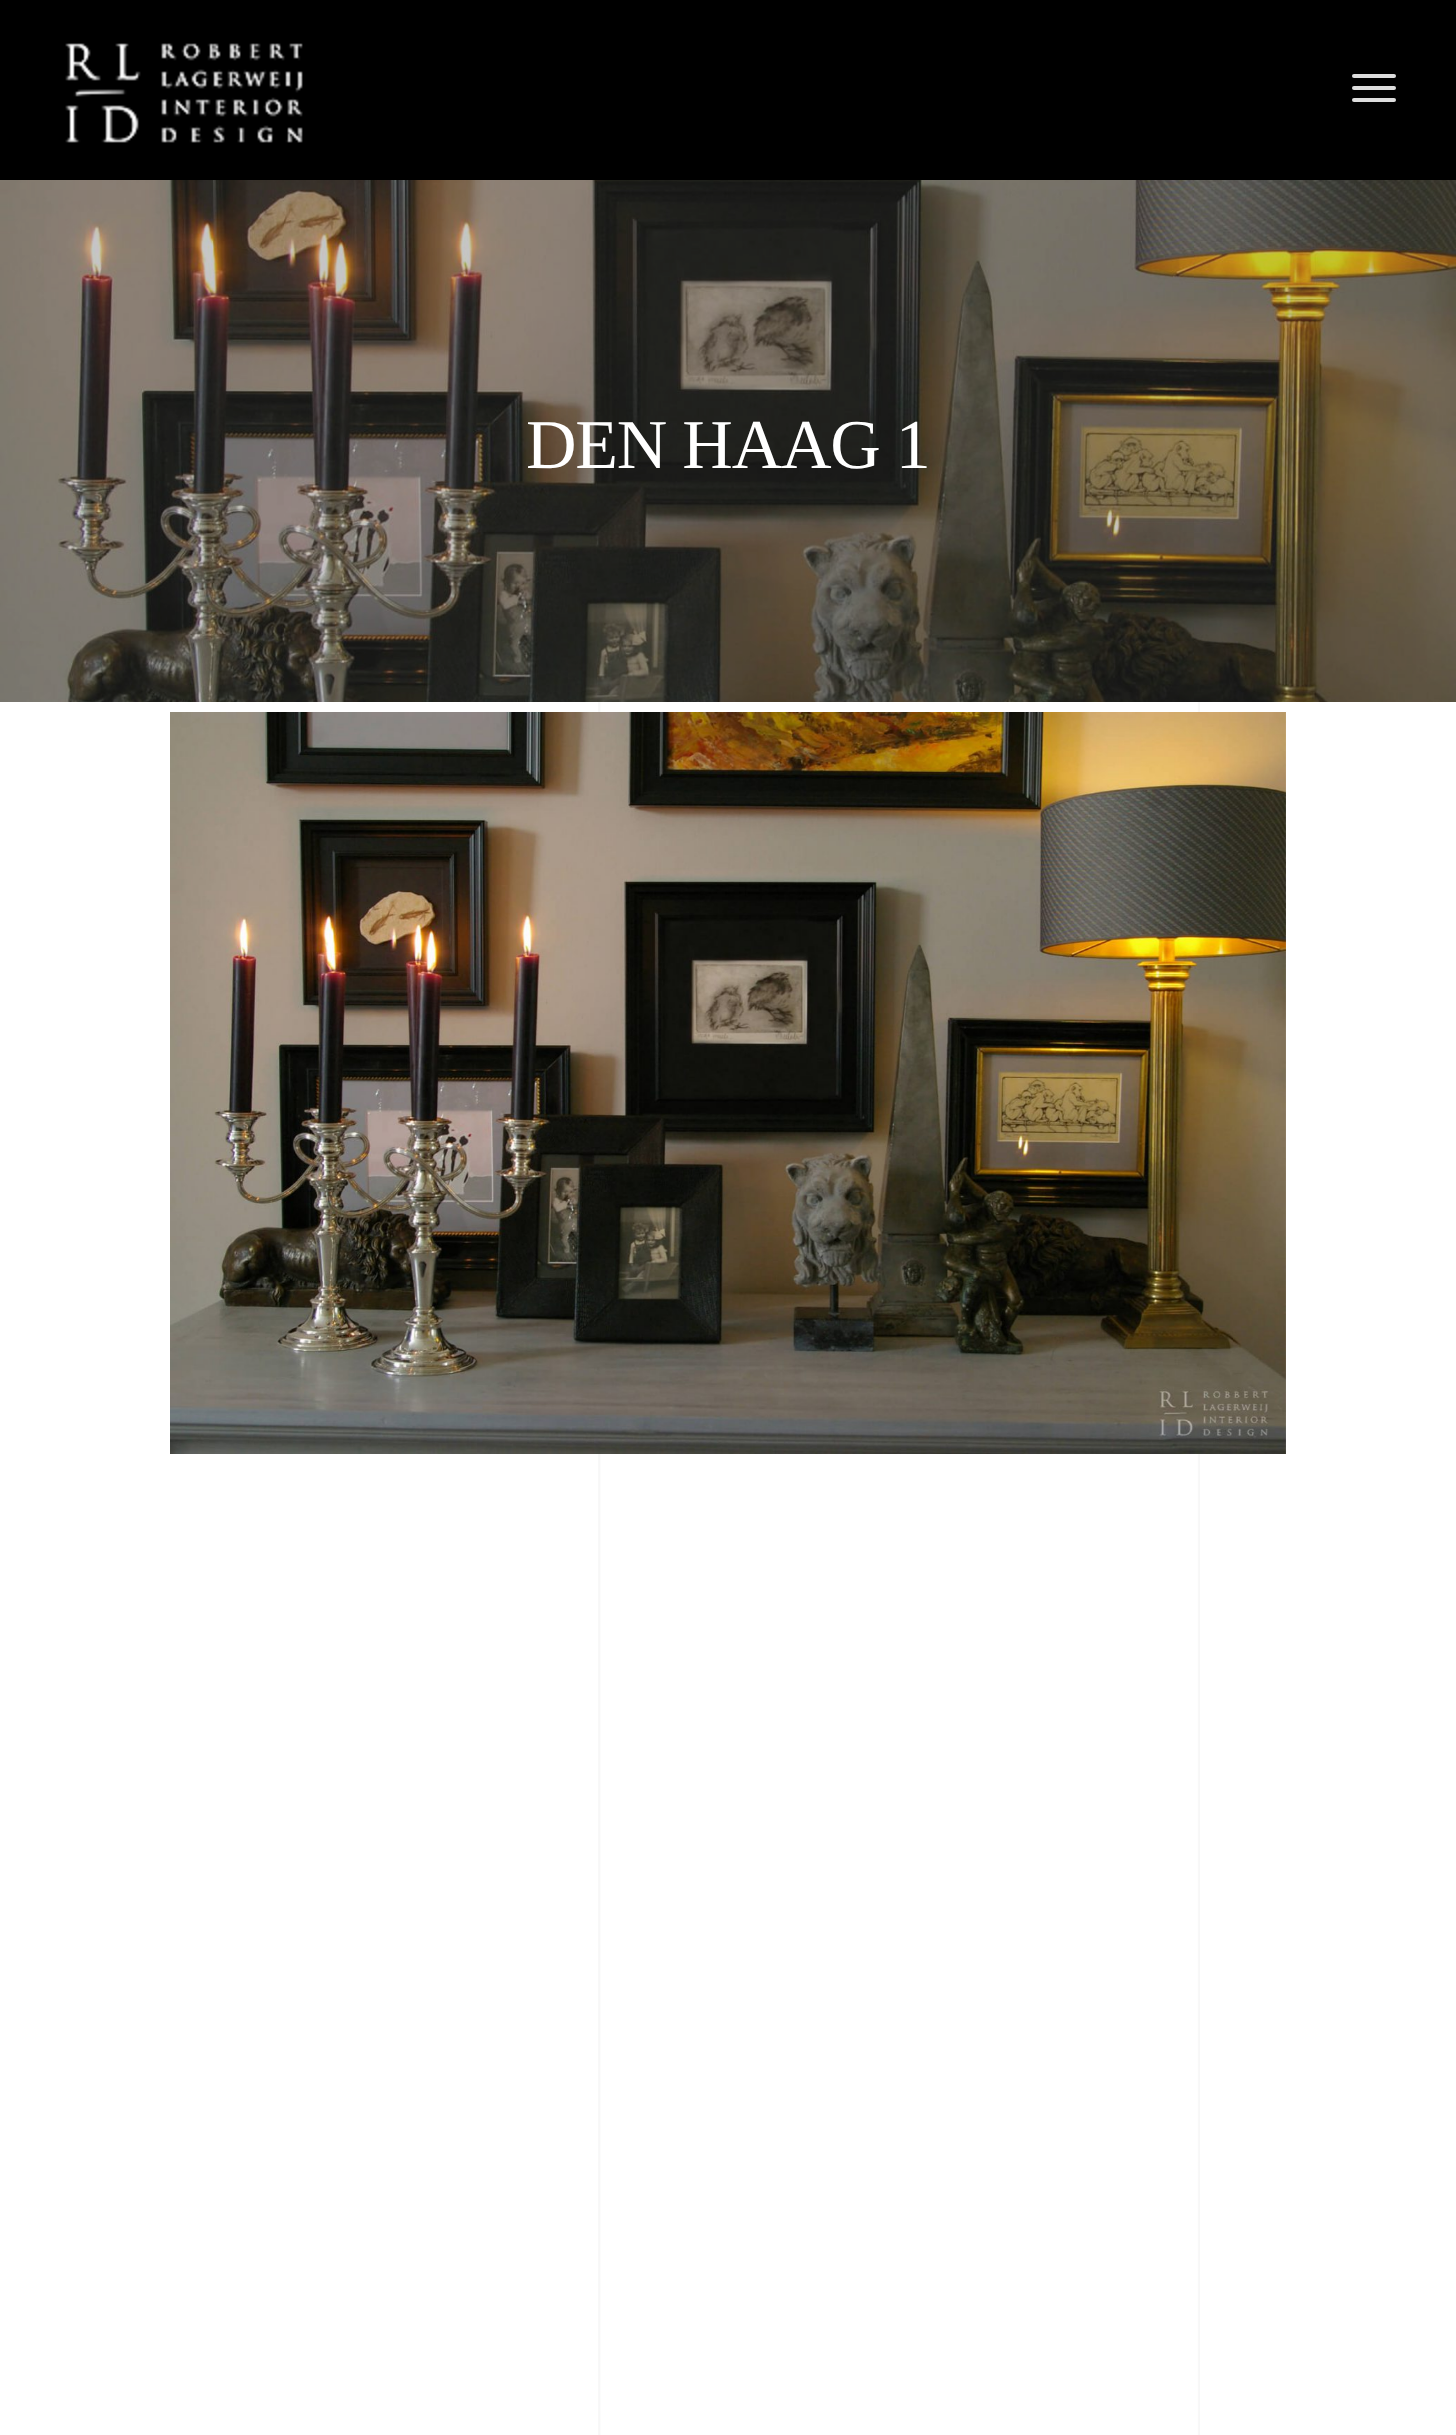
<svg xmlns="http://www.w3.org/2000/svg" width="1456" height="2435">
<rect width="100%" height="100%" fill="#fff"/>
<image x="598" y="702" width="602" height="1733" href="media/1.png"/>
<rect width="1456" height="180" fill="#000"/>
<image x="65" y="43" width="238" height="100" href="media/2.png"/>
<rect x="1352" y="74" width="44" height="4" rx="2" fill="#ddd"/>
<rect x="1352" y="86" width="44" height="4" rx="2" fill="#ddd"/>
<rect x="1352" y="98" width="44" height="4" rx="2" fill="#ddd"/>
<image x="0" y="180" width="1456" height="522" href="media/3.png"/>
<text x="526" y="468" style="font-family:Liberation Serif;font-size:70px;letter-spacing:-1.25px;fill:#fff">DEN HAAG 1</text>
<image x="170" y="712" width="1116" height="742" href="media/4.png"/>
</svg>
